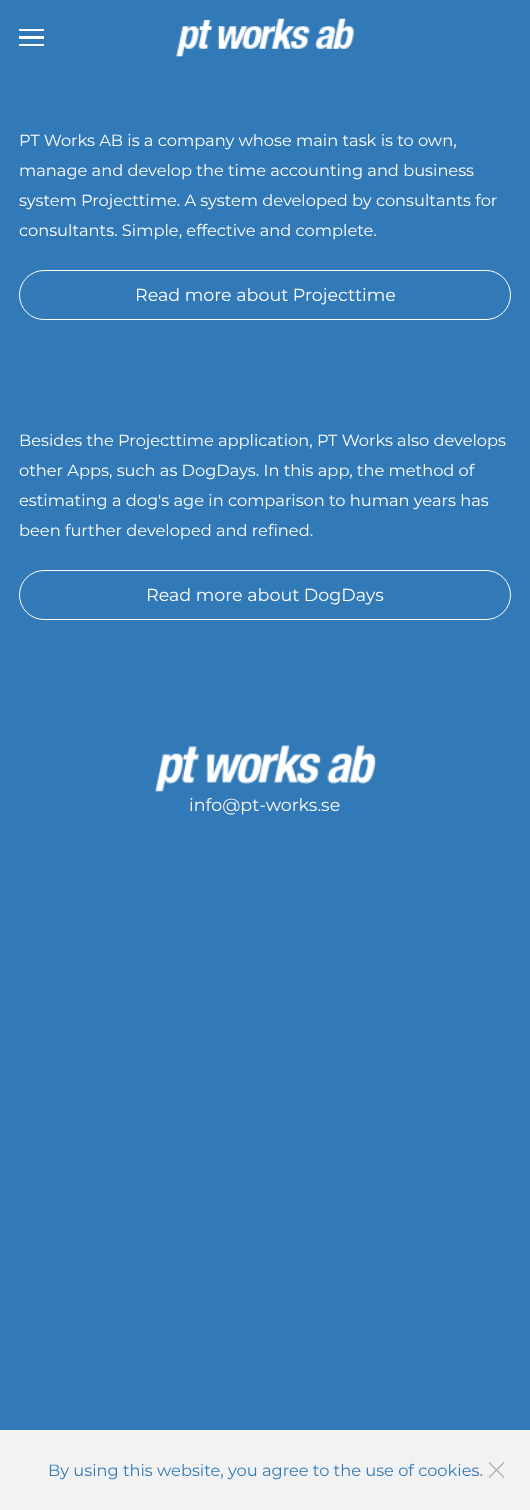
<svg xmlns="http://www.w3.org/2000/svg" width="530" height="1510">
<rect width="100%" height="100%" fill="#327ab7"/>
<rect x="19" y="29" width="25" height="2" fill="#fff"/>
<rect x="19" y="36" width="25" height="3" fill="#fff"/>
<rect x="19" y="44" width="25" height="2" fill="#fff"/>
<image x="176" y="18" width="178" height="39" href="media/1.png"/>
<text x="19" y="146" style="font-family:Montserrat;font-size:16.25px;font-weight:100;fill:#fff">PT Works AB is a company whose main task is to own,</text>
<text x="19" y="176" style="font-family:Montserrat;font-size:16.25px;font-weight:100;fill:#fff">manage and develop the time accounting and business</text>
<text x="19" y="206" style="font-family:Montserrat;font-size:16.25px;font-weight:100;fill:#fff">system Projecttime. A system developed by consultants for</text>
<text x="19" y="236" style="font-family:Montserrat;font-size:16.25px;font-weight:100;fill:#fff">consultants. Simple, effective and complete.</text>
<rect x="19.5" y="270.5" width="491" height="49" rx="24.5" fill="none" stroke="#fff"/>
<text x="135" y="301" style="font-family:Montserrat;font-size:17.5px;font-weight:100;fill:#fff">Read more about Projecttime</text>
<text x="19" y="446" style="font-family:Montserrat;font-size:16.25px;font-weight:100;fill:#fff">Besides the Projecttime application, PT Works also develops</text>
<text x="19" y="476" style="font-family:Montserrat;font-size:16.25px;font-weight:100;fill:#fff">other Apps, such as DogDays. In this app, the method of</text>
<text x="19" y="506" style="font-family:Montserrat;font-size:16.25px;font-weight:100;fill:#fff">estimating a dog's age in comparison to human years has</text>
<text x="19" y="536" style="font-family:Montserrat;font-size:16.25px;font-weight:100;fill:#fff">been further developed and refined.</text>
<rect x="19.5" y="570.5" width="491" height="49" rx="24.5" fill="none" stroke="#fff"/>
<text x="146" y="601" style="font-family:Montserrat;font-size:17.5px;font-weight:100;fill:#fff">Read more about DogDays</text>
<image x="155" y="745" width="221" height="47" href="media/2.png"/>
<text x="189" y="811" style="font-family:Montserrat;font-size:17.5px;font-weight:100;fill:#faf9f6">info@pt-works.se</text>
<rect y="1430" width="530" height="80" fill="#f2f2f2"/>
<text x="48" y="1476" style="font-family:Montserrat;font-size:16.25px;font-weight:100;fill:#327ab7">By using this website, you agree to the use of cookies.</text>
<path d="M489 1462.5l15 15m0-15l-15 15" fill="none" stroke="#b2b0b3" stroke-width="1.4"/>
</svg>
